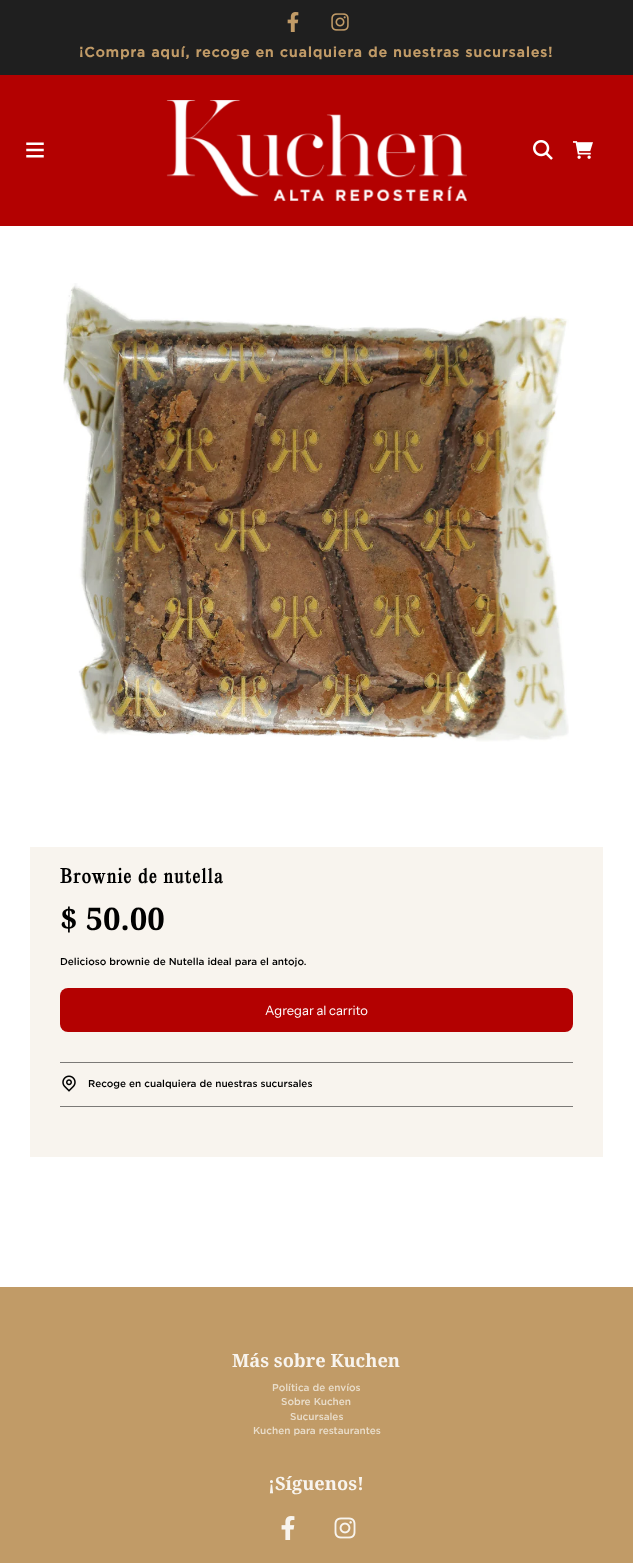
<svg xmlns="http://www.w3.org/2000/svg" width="633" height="1563">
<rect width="100%" height="100%" fill="#fff"/>
<rect width="633" height="75" fill="#1f1f1f"/>
<image x="287" y="12" width="12" height="20" href="media/1.png"/>
<image x="331" y="13" width="18" height="18" href="media/2.png"/>
<text x="79" y="57" style="font-family:Gotham;font-size:14px;font-weight:bold;letter-spacing:1px;fill:#c19b67">¡Compra aquí, recoge en cualquiera de nuestras sucursales!</text>
<rect y="75" width="633" height="151" fill="#b30101"/>
<image x="26" y="142" width="18" height="16" href="media/3.png"/>
<image x="166" y="100" width="301" height="101" href="media/4.png"/>
<image x="533" y="140" width="20" height="20" href="media/5.png"/>
<image x="573" y="141" width="20" height="18" href="media/6.png"/>
<image x="63" y="283" width="506" height="459" href="media/7.png"/>
<rect x="30" y="847" width="573" height="310" fill="#f8f4ee"/>
<text x="60" y="883" style="font-family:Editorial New;font-size:18px;font-weight:bold;letter-spacing:1.5px;fill:#000">Brownie de nutella</text>
<text x="60" y="930" style="font-family:Noto Serif;font-size:31px;font-weight:bold;fill:#000">$ 50.00</text>
<text x="60" y="965" style="font-family:Gotham;font-size:10px;font-weight:500;fill:#000">Delicioso brownie de Nutella ideal para el antojo.</text>
<rect x="60" y="988" width="513" height="44" rx="8" fill="#b30101"/>
<text x="265" y="1015" style="font-family:Instrument Sans;font-size:13px;fill:#fff">Agregar al carrito</text>
<rect x="60" y="1062" width="513" height="1" fill="#7c7a77"/>
<rect x="60" y="1106" width="513" height="1" fill="#7c7a77"/>
<image x="62" y="1075" width="14" height="17" href="media/8.png"/>
<text x="88" y="1087" style="font-family:Gotham;font-size:10px;font-weight:500;fill:#000">Recoge en cualquiera de nuestras sucursales</text>
<rect y="1287" width="633" height="276" fill="#c19b67"/>
<text x="232" y="1367" style="font-family:Noto Serif;font-size:18.25px;font-weight:bold;fill:#f8f4ee">Más sobre Kuchen</text>
<text x="272" y="1391" style="font-family:Gotham;font-size:10px;font-weight:500;fill:#e9ddca">Política de envíos</text>
<text x="281" y="1405" style="font-family:Gotham;font-size:10px;font-weight:500;fill:#e9ddca">Sobre Kuchen</text>
<text x="290" y="1420" style="font-family:Gotham;font-size:10px;font-weight:500;fill:#e9ddca">Sucursales</text>
<text x="253" y="1434" style="font-family:Gotham;font-size:10px;font-weight:500;fill:#e9ddca">Kuchen para restaurantes</text>
<text x="268" y="1490" style="font-family:Noto Serif;font-size:18.25px;font-weight:bold;fill:#f8f4ee">¡Síguenos!</text>
<image x="281" y="1516" width="14" height="24" href="media/9.png"/>
<image x="334" y="1517" width="22" height="22" href="media/10.png"/>
</svg>
